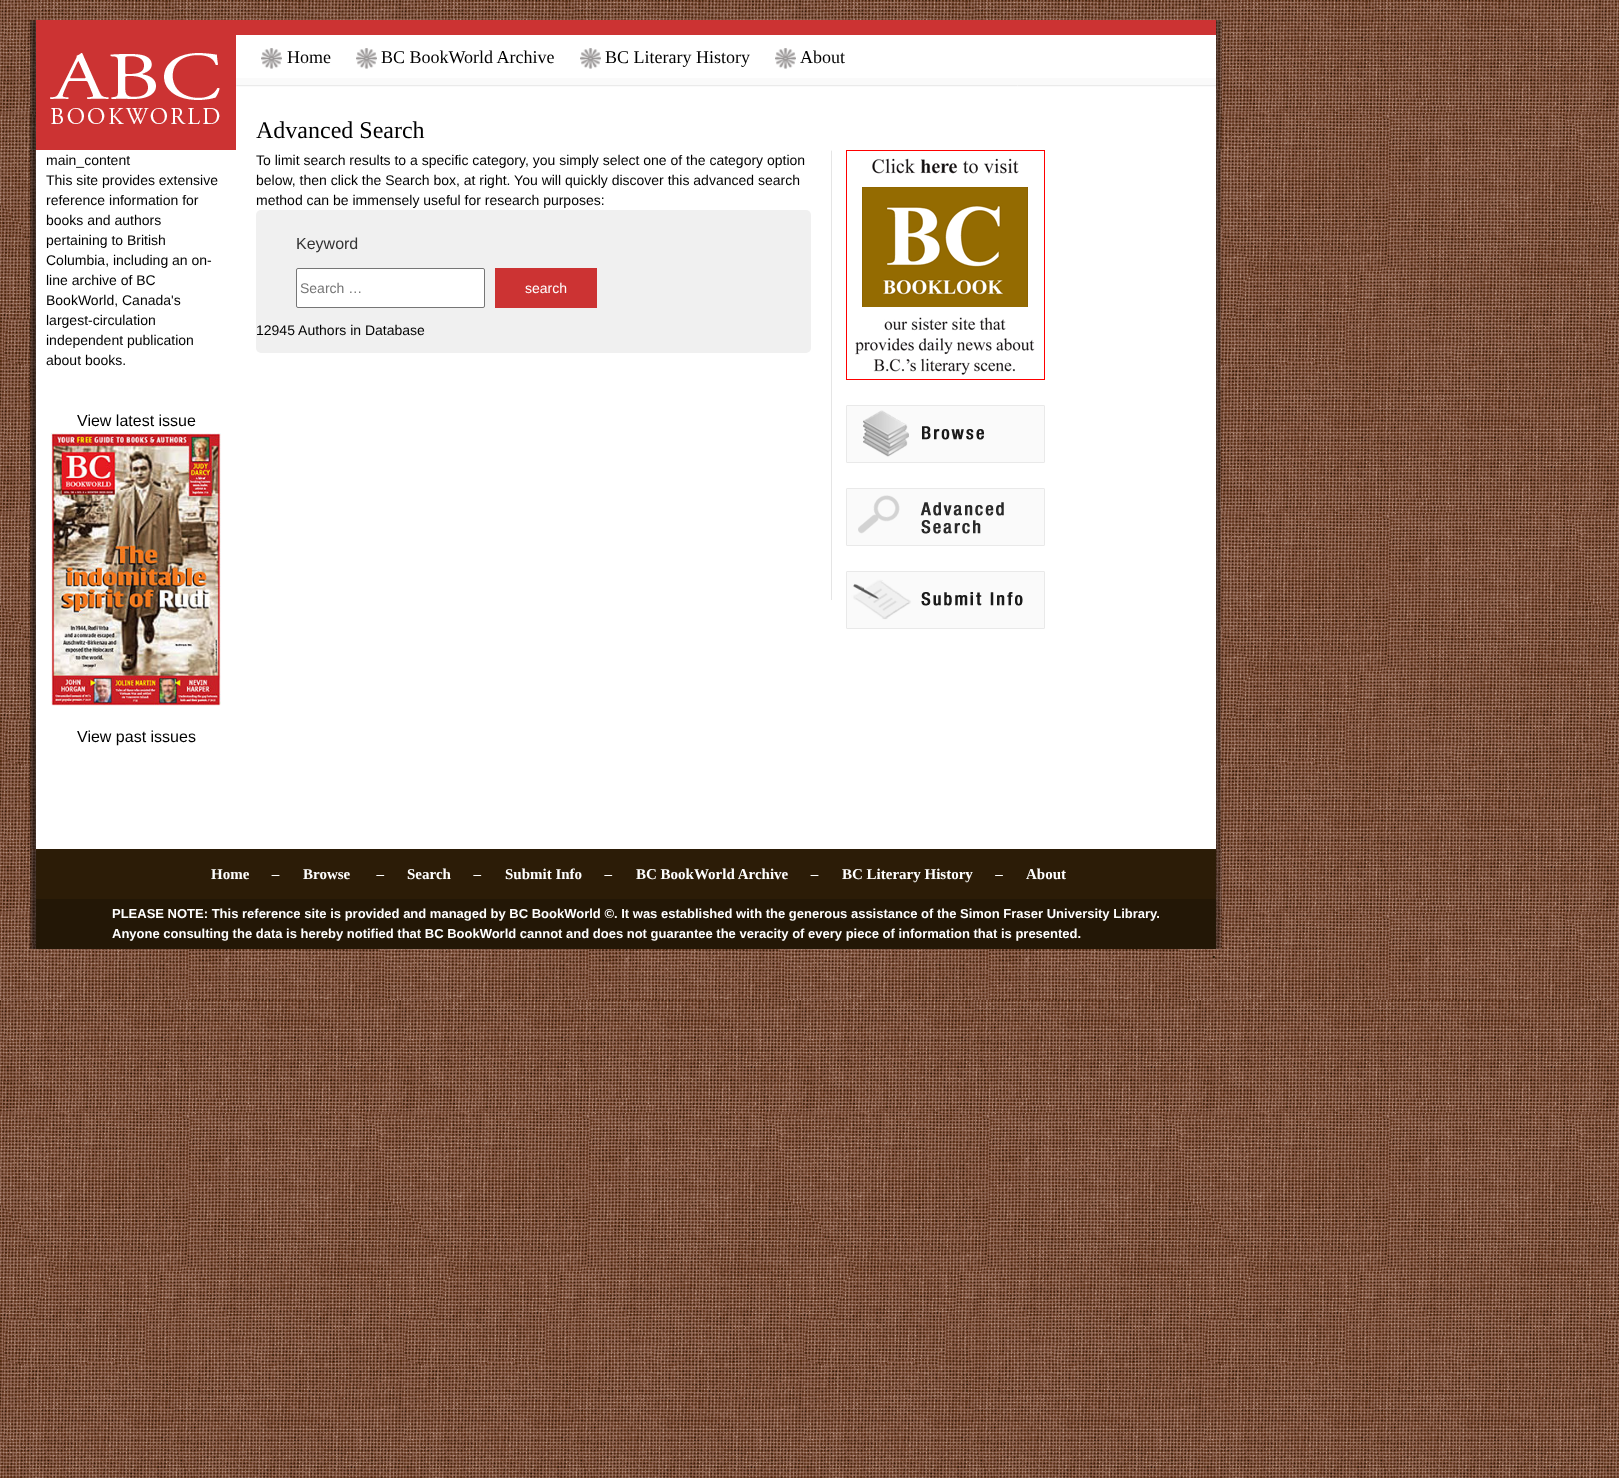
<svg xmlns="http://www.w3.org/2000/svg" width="1619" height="1478">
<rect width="100%" height="100%" fill="#fff"/>
<image x="0" y="0" width="1619" height="1478" href="media/1.png"/>
<image x="30" y="20" width="6" height="130" href="media/2.png"/>
<rect x="236" y="35" width="980" height="115" fill="#fff"/>
<rect x="36" y="20" width="1180" height="15" fill="#c33"/>
<image x="36" y="35" width="200" height="115" href="media/3.png"/>
<rect x="236" y="78" width="980" height="7" fill="#fafafa"/>
<image x="261" y="48" width="21" height="21" href="media/4.png"/>
<text x="287" y="63" style="font-family:Liberation Serif;font-size:18px;fill:#000">Home</text>
<image x="356" y="48" width="21" height="21" href="media/4.png"/>
<text x="381" y="63" style="font-family:Liberation Serif;font-size:18px;fill:#000">BC BookWorld Archive</text>
<image x="580" y="48" width="21" height="21" href="media/5.png"/>
<text x="605" y="63" style="font-family:Liberation Serif;font-size:18px;fill:#000">BC Literary History</text>
<image x="775" y="48" width="21" height="21" href="media/5.png"/>
<text x="800" y="63" style="font-family:Liberation Serif;font-size:18px;fill:#000">About</text>
<image x="236" y="85" width="980" height="2" href="media/6.png"/>
<text x="256" y="138" style="font-family:Liberation Serif;font-size:24px;fill:#000">Advanced Search</text>
<image x="1216" y="20" width="6" height="130" href="media/7.png"/>
<image x="30" y="150" width="1191" height="699" href="media/8.png"/>
<text x="46" y="165" style="font-family:Liberation Sans;font-size:14px;fill:#000">main_content</text>
<text x="46" y="185" style="font-family:Liberation Sans;font-size:14px;fill:#000">This site provides extensive</text>
<text x="46" y="205" style="font-family:Liberation Sans;font-size:14px;fill:#000">reference information for</text>
<text x="46" y="225" style="font-family:Liberation Sans;font-size:14px;fill:#000">books and authors</text>
<text x="46" y="245" style="font-family:Liberation Sans;font-size:14px;fill:#000">pertaining to British</text>
<text x="46" y="265" style="font-family:Liberation Sans;font-size:14px;fill:#000">Columbia, including an on-</text>
<text x="46" y="285" style="font-family:Liberation Sans;font-size:14px;fill:#000">line archive of BC</text>
<text x="46" y="305" style="font-family:Liberation Sans;font-size:14px;fill:#000">BookWorld, Canada's</text>
<text x="46" y="325" style="font-family:Liberation Sans;font-size:14px;fill:#000">largest-circulation</text>
<text x="46" y="345" style="font-family:Liberation Sans;font-size:14px;fill:#000">independent publication</text>
<text x="46" y="365" style="font-family:Liberation Sans;font-size:14px;fill:#000">about books.</text>
<text x="77" y="426" style="font-family:Liberation Sans;font-size:16px;fill:#000">View latest issue</text>
<image x="51" y="433" width="170" height="273" href="media/9.png"/>
<text x="77" y="742" style="font-family:Liberation Sans;font-size:16px;fill:#000">View past issues</text>
<text x="256" y="165" style="font-family:Liberation Sans;font-size:14px;fill:#000">To limit search results to a specific category, you simply select one of the category option</text>
<text x="256" y="185" style="font-family:Liberation Sans;font-size:14px;fill:#000">below, then click the Search box, at right. You will quickly discover this advanced search</text>
<text x="256" y="205" style="font-family:Liberation Sans;font-size:14px;fill:#000">method can be immensely useful for research purposes:</text>
<rect x="256" y="210" width="555" height="143" rx="5" fill="#f0f0f0"/>
<text x="296" y="249" style="font-family:Liberation Sans;font-size:16px;fill:#333">Keyword</text>
<rect x="296.5" y="268.5" width="188" height="39" rx="1.5" fill="#fff" stroke="#767676"/>
<text x="300" y="293" style="font-family:Liberation Sans;font-size:14px;fill:#757575">Search …</text>
<rect x="495" y="268" width="102" height="40" fill="#c33"/>
<text x="525" y="293" style="font-family:Liberation Sans;font-size:14px;fill:#fff">search</text>
<text x="256" y="335" style="font-family:Liberation Sans;font-size:14px;fill:#000">12945 Authors in Database</text>
<image x="831" y="150" width="1" height="450" href="media/10.png"/>
<image x="846" y="150" width="199" height="230" href="media/11.png"/>
<image x="846" y="405" width="199" height="58" href="media/12.png"/>
<image x="846" y="488" width="199" height="58" href="media/13.png"/>
<image x="846" y="571" width="199" height="58" href="media/14.png"/>
<image x="30" y="849" width="6" height="100" href="media/15.png"/>
<rect x="36" y="849" width="1180" height="50" fill="#2c1c07"/>
<text x="211" y="879" style="font-family:Liberation Serif;font-size:15px;font-weight:bold;fill:#fff" xml:space="preserve">Home      –</text>
<text x="303" y="879" style="font-family:Liberation Serif;font-size:15px;font-weight:bold;fill:#fff" xml:space="preserve">Browse       –</text>
<text x="407" y="879" style="font-family:Liberation Serif;font-size:15px;font-weight:bold;fill:#fff" xml:space="preserve">Search      –</text>
<text x="505" y="879" style="font-family:Liberation Serif;font-size:15px;font-weight:bold;fill:#fff" xml:space="preserve">Submit Info      –</text>
<text x="636" y="879" style="font-family:Liberation Serif;font-size:15px;font-weight:bold;fill:#fff" xml:space="preserve">BC BookWorld Archive      –</text>
<text x="842" y="879" style="font-family:Liberation Serif;font-size:15px;font-weight:bold;fill:#fff" xml:space="preserve">BC Literary History      –</text>
<text x="1026" y="879" style="font-family:Liberation Serif;font-size:15px;font-weight:bold;fill:#fff">About</text>
<rect x="36" y="899" width="1180" height="50" fill="#231706"/>
<text x="112" y="918" style="font-family:Liberation Sans;font-size:13px;font-weight:bold;fill:#fff">PLEASE NOTE: This reference site is provided and managed by BC BookWorld ©. It was established with the generous assistance of the Simon Fraser University Library.</text>
<text x="112" y="938" style="font-family:Liberation Sans;font-size:13px;font-weight:bold;fill:#fff">Anyone consulting the data is hereby notified that BC BookWorld cannot and does not guarantee the veracity of every piece of information that is presented.</text>
<text x="1212" y="958" style="font-family:Liberation Sans;font-size:13px;font-weight:bold;fill:#231706">.</text>
<image x="1216" y="849" width="6" height="100" href="media/16.png"/>
</svg>
